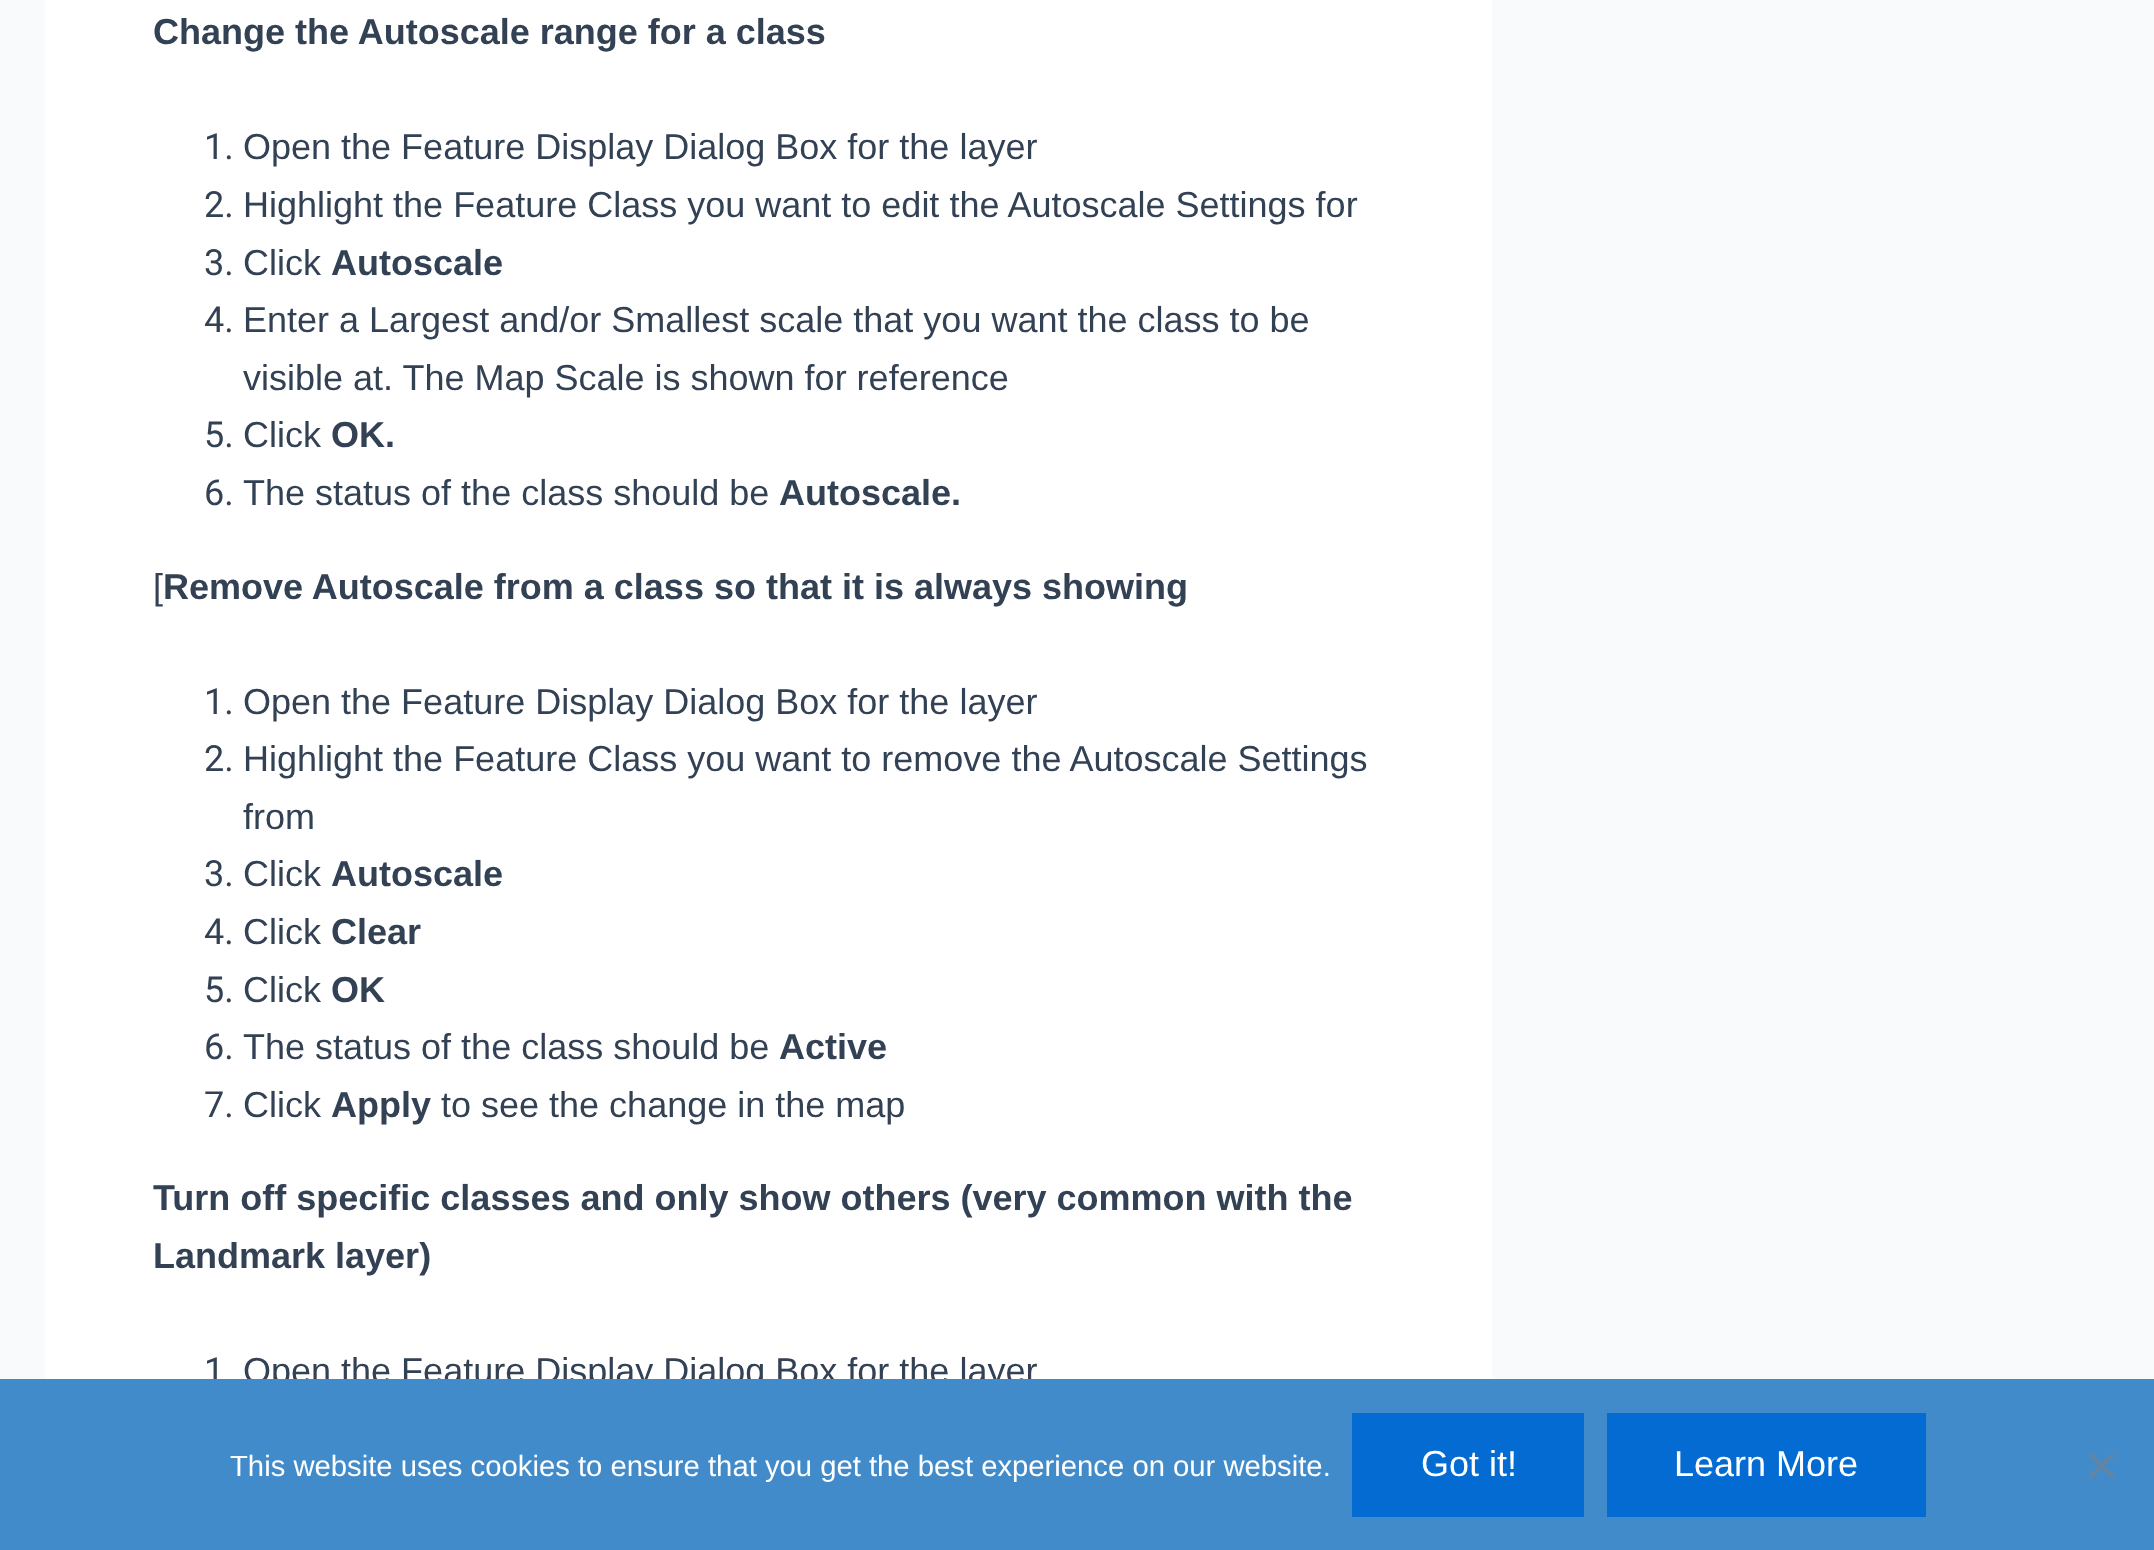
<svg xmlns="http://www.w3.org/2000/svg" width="2154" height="1550">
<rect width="100%" height="100%" fill="#f9fafb"/>
<rect x="45" width="1447" height="1379" fill="#fff"/>
<text x="153" y="44" style="font-family:Liberation Sans;font-size:36px;font-weight:bold;fill:#334155">Change the Autoscale range for a class</text>
<text x="204" y="159" style="font-family:Roboto;font-size:36px;fill:#334155">1.</text>
<text x="243" y="159" style="font-family:Liberation Sans;font-size:36px;fill:#334155">Open the Feature Display Dialog Box for the layer</text>
<text x="204" y="217" style="font-family:Roboto;font-size:36px;fill:#334155">2.</text>
<text x="243" y="217" style="font-family:Liberation Sans;font-size:36px;fill:#334155">Highlight the Feature Class you want to edit the Autoscale Settings for</text>
<text x="204" y="275" style="font-family:Roboto;font-size:36px;fill:#334155">3.</text>
<text x="243" y="275" style="font-family:Liberation Sans;font-size:36px;fill:#334155">Click</text>
<text x="331" y="275" style="font-family:Liberation Sans;font-size:36px;font-weight:bold;fill:#334155">Autoscale</text>
<text x="204" y="332" style="font-family:Roboto;font-size:36px;fill:#334155">4.</text>
<text x="243" y="332" style="font-family:Liberation Sans;font-size:36px;fill:#334155">Enter a Largest and/or Smallest scale that you want the class to be</text>
<text x="243" y="390" style="font-family:Liberation Sans;font-size:36px;fill:#334155">visible at. The Map Scale is shown for reference</text>
<text x="204" y="447" style="font-family:Roboto;font-size:36px;fill:#334155">5.</text>
<text x="243" y="447" style="font-family:Liberation Sans;font-size:36px;fill:#334155">Click</text>
<text x="331" y="447" style="font-family:Liberation Sans;font-size:36px;font-weight:bold;fill:#334155">OK.</text>
<text x="204" y="505" style="font-family:Roboto;font-size:36px;fill:#334155">6.</text>
<text x="243" y="505" style="font-family:Liberation Sans;font-size:36px;fill:#334155">The status of the class should be</text>
<text x="779" y="505" style="font-family:Liberation Sans;font-size:36px;font-weight:bold;fill:#334155">Autoscale.</text>
<text x="153" y="599" style="font-family:Liberation Sans;font-size:36px;fill:#334155">[</text>
<text x="163" y="599" style="font-family:Liberation Sans;font-size:36px;font-weight:bold;fill:#334155">Remove Autoscale from a class so that it is always showing</text>
<text x="204" y="714" style="font-family:Roboto;font-size:36px;fill:#334155">1.</text>
<text x="243" y="714" style="font-family:Liberation Sans;font-size:36px;fill:#334155">Open the Feature Display Dialog Box for the layer</text>
<text x="204" y="771" style="font-family:Roboto;font-size:36px;fill:#334155">2.</text>
<text x="243" y="771" style="font-family:Liberation Sans;font-size:36px;fill:#334155">Highlight the Feature Class you want to remove the Autoscale Settings</text>
<text x="243" y="829" style="font-family:Liberation Sans;font-size:36px;fill:#334155">from</text>
<text x="204" y="886" style="font-family:Roboto;font-size:36px;fill:#334155">3.</text>
<text x="243" y="886" style="font-family:Liberation Sans;font-size:36px;fill:#334155">Click</text>
<text x="331" y="886" style="font-family:Liberation Sans;font-size:36px;font-weight:bold;fill:#334155">Autoscale</text>
<text x="204" y="944" style="font-family:Roboto;font-size:36px;fill:#334155">4.</text>
<text x="243" y="944" style="font-family:Liberation Sans;font-size:36px;fill:#334155">Click</text>
<text x="331" y="944" style="font-family:Liberation Sans;font-size:36px;font-weight:bold;fill:#334155">Clear</text>
<text x="204" y="1002" style="font-family:Roboto;font-size:36px;fill:#334155">5.</text>
<text x="243" y="1002" style="font-family:Liberation Sans;font-size:36px;fill:#334155">Click</text>
<text x="331" y="1002" style="font-family:Liberation Sans;font-size:36px;font-weight:bold;fill:#334155">OK</text>
<text x="204" y="1059" style="font-family:Roboto;font-size:36px;fill:#334155">6.</text>
<text x="243" y="1059" style="font-family:Liberation Sans;font-size:36px;fill:#334155">The status of the class should be</text>
<text x="779" y="1059" style="font-family:Liberation Sans;font-size:36px;font-weight:bold;fill:#334155">Active</text>
<text x="204" y="1117" style="font-family:Roboto;font-size:36px;fill:#334155">7.</text>
<text x="243" y="1117" style="font-family:Liberation Sans;font-size:36px;fill:#334155">Click</text>
<text x="331" y="1117" style="font-family:Liberation Sans;font-size:36px;font-weight:bold;fill:#334155">Apply</text>
<text x="441" y="1117" style="font-family:Liberation Sans;font-size:36px;fill:#334155">to see the change in the map</text>
<text x="153" y="1210" style="font-family:Liberation Sans;font-size:36px;font-weight:bold;fill:#334155">Turn off specific classes and only show others (very common with the</text>
<text x="153" y="1268" style="font-family:Liberation Sans;font-size:36px;font-weight:bold;fill:#334155">Landmark layer)</text>
<text x="204" y="1383" style="font-family:Roboto;font-size:36px;fill:#334155">1</text>
<text x="243" y="1383" style="font-family:Liberation Sans;font-size:36px;fill:#334155">Open the Feature Display Dialog Box for the layer</text>
<rect y="1379" width="2154" height="171" fill="#428bca"/>
<text x="230" y="1476" style="font-family:Liberation Sans;font-size:29.25px;fill:#fff">This website uses cookies to ensure that you get the best experience on our website.</text>
<rect x="1352" y="1413" width="232" height="104" fill="#046bd2"/>
<text x="1421" y="1476" style="font-family:Liberation Sans;font-size:36px;fill:#fff">Got it!</text>
<rect x="1607" y="1413" width="319" height="104" fill="#046bd2"/>
<text x="1674" y="1476" style="font-family:Liberation Sans;font-size:36px;fill:#fff">Learn More</text>
<path d="M2112 1452.5l3 3l-24 24l-3-3.5z" fill="#6186a5"/>
<path d="M2088 1455.5l3-3l24 23.5l-3 3.5z" fill="#6186a5"/>
</svg>
